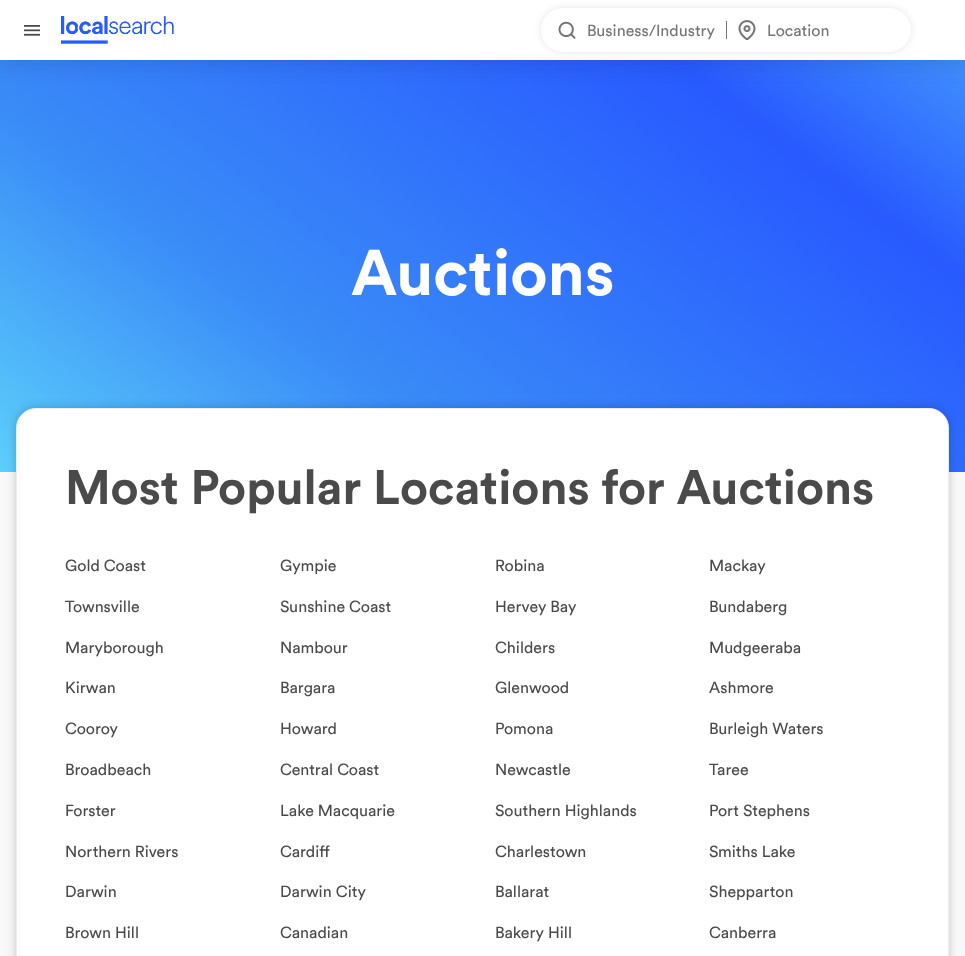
<svg xmlns="http://www.w3.org/2000/svg" width="965" height="956">
<defs>
<linearGradient id="g1" gradientUnits="userSpaceOnUse" x1="162" y1="687" x2="888" y2="-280"><stop offset="0" stop-color="#65e0fb"/><stop offset="0.3" stop-color="#3a8cf7"/><stop offset="0.67" stop-color="#285aff"/><stop offset="1" stop-color="#5fd3fb"/></linearGradient>
</defs>
<rect width="100%" height="100%" fill="#f8f8f8"/>
<rect y="60" width="965" height="412" fill="url(#g1)"/>
<rect x="-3" y="-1" width="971" height="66" fill="#0000001a" filter="blur(10px)"/>
<rect width="965" height="60" fill="#fff"/>
<image x="24" y="25" width="16" height="11" href="media/1.png"/>
<image x="61" y="16" width="113" height="28" href="media/2.png"/>
<rect x="541" y="8" width="370" height="44" rx="22" fill="#0000001a" filter="blur(3.5px)"/>
<rect x="541" y="8" width="370" height="44" rx="22" fill="#fff"/>
<image x="558" y="21" width="18" height="18" href="media/3.png"/>
<text x="587" y="36" style="font-family:Circular;font-size:16px;fill:#757575">Business/Industry</text>
<rect x="726" y="21" width="1" height="18" fill="#757575"/>
<image x="738" y="20" width="18" height="20" href="media/4.png"/>
<text x="767" y="36" style="font-family:Circular;font-size:16px;fill:#757575">Location</text>
<text x="351" y="295" style="font-family:Circular;font-size:64px;font-weight:bold;fill:#fff">Auctions</text>
<rect x="16" y="408" width="933" height="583" rx="20" fill="#00000033" filter="blur(5px)"/>
<rect x="16.5" y="408.5" width="932" height="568" rx="19.5" fill="#fff" stroke="#ececec"/>
<text x="65" y="504" style="font-family:Circular;font-size:48px;font-weight:bold;fill:#4a4a4a">Most Popular Locations for Auctions</text>
<text x="65" y="571" style="font-family:Circular;font-size:16px;fill:#4a4a4a">Gold Coast</text>
<text x="280" y="571" style="font-family:Circular;font-size:16px;fill:#4a4a4a">Gympie</text>
<text x="495" y="571" style="font-family:Circular;font-size:16px;fill:#4a4a4a">Robina</text>
<text x="709" y="571" style="font-family:Circular;font-size:16px;fill:#4a4a4a">Mackay</text>
<text x="65" y="612" style="font-family:Circular;font-size:16px;fill:#4a4a4a">Townsville</text>
<text x="280" y="612" style="font-family:Circular;font-size:16px;fill:#4a4a4a">Sunshine Coast</text>
<text x="495" y="612" style="font-family:Circular;font-size:16px;fill:#4a4a4a">Hervey Bay</text>
<text x="709" y="612" style="font-family:Circular;font-size:16px;fill:#4a4a4a">Bundaberg</text>
<text x="65" y="653" style="font-family:Circular;font-size:16px;fill:#4a4a4a">Maryborough</text>
<text x="280" y="653" style="font-family:Circular;font-size:16px;fill:#4a4a4a">Nambour</text>
<text x="495" y="653" style="font-family:Circular;font-size:16px;fill:#4a4a4a">Childers</text>
<text x="709" y="653" style="font-family:Circular;font-size:16px;fill:#4a4a4a">Mudgeeraba</text>
<text x="65" y="693" style="font-family:Circular;font-size:16px;fill:#4a4a4a">Kirwan</text>
<text x="280" y="693" style="font-family:Circular;font-size:16px;fill:#4a4a4a">Bargara</text>
<text x="495" y="693" style="font-family:Circular;font-size:16px;fill:#4a4a4a">Glenwood</text>
<text x="709" y="693" style="font-family:Circular;font-size:16px;fill:#4a4a4a">Ashmore</text>
<text x="65" y="734" style="font-family:Circular;font-size:16px;fill:#4a4a4a">Cooroy</text>
<text x="280" y="734" style="font-family:Circular;font-size:16px;fill:#4a4a4a">Howard</text>
<text x="495" y="734" style="font-family:Circular;font-size:16px;fill:#4a4a4a">Pomona</text>
<text x="709" y="734" style="font-family:Circular;font-size:16px;fill:#4a4a4a">Burleigh Waters</text>
<text x="65" y="775" style="font-family:Circular;font-size:16px;fill:#4a4a4a">Broadbeach</text>
<text x="280" y="775" style="font-family:Circular;font-size:16px;fill:#4a4a4a">Central Coast</text>
<text x="495" y="775" style="font-family:Circular;font-size:16px;fill:#4a4a4a">Newcastle</text>
<text x="709" y="775" style="font-family:Circular;font-size:16px;fill:#4a4a4a">Taree</text>
<text x="65" y="816" style="font-family:Circular;font-size:16px;fill:#4a4a4a">Forster</text>
<text x="280" y="816" style="font-family:Circular;font-size:16px;fill:#4a4a4a">Lake Macquarie</text>
<text x="495" y="816" style="font-family:Circular;font-size:16px;fill:#4a4a4a">Southern Highlands</text>
<text x="709" y="816" style="font-family:Circular;font-size:16px;fill:#4a4a4a">Port Stephens</text>
<text x="65" y="857" style="font-family:Circular;font-size:16px;fill:#4a4a4a">Northern Rivers</text>
<text x="280" y="857" style="font-family:Circular;font-size:16px;fill:#4a4a4a">Cardiff</text>
<text x="495" y="857" style="font-family:Circular;font-size:16px;fill:#4a4a4a">Charlestown</text>
<text x="709" y="857" style="font-family:Circular;font-size:16px;fill:#4a4a4a">Smiths Lake</text>
<text x="65" y="897" style="font-family:Circular;font-size:16px;fill:#4a4a4a">Darwin</text>
<text x="280" y="897" style="font-family:Circular;font-size:16px;fill:#4a4a4a">Darwin City</text>
<text x="495" y="897" style="font-family:Circular;font-size:16px;fill:#4a4a4a">Ballarat</text>
<text x="709" y="897" style="font-family:Circular;font-size:16px;fill:#4a4a4a">Shepparton</text>
<text x="65" y="938" style="font-family:Circular;font-size:16px;fill:#4a4a4a">Brown Hill</text>
<text x="280" y="938" style="font-family:Circular;font-size:16px;fill:#4a4a4a">Canadian</text>
<text x="495" y="938" style="font-family:Circular;font-size:16px;fill:#4a4a4a">Bakery Hill</text>
<text x="709" y="938" style="font-family:Circular;font-size:16px;fill:#4a4a4a">Canberra</text>
</svg>
